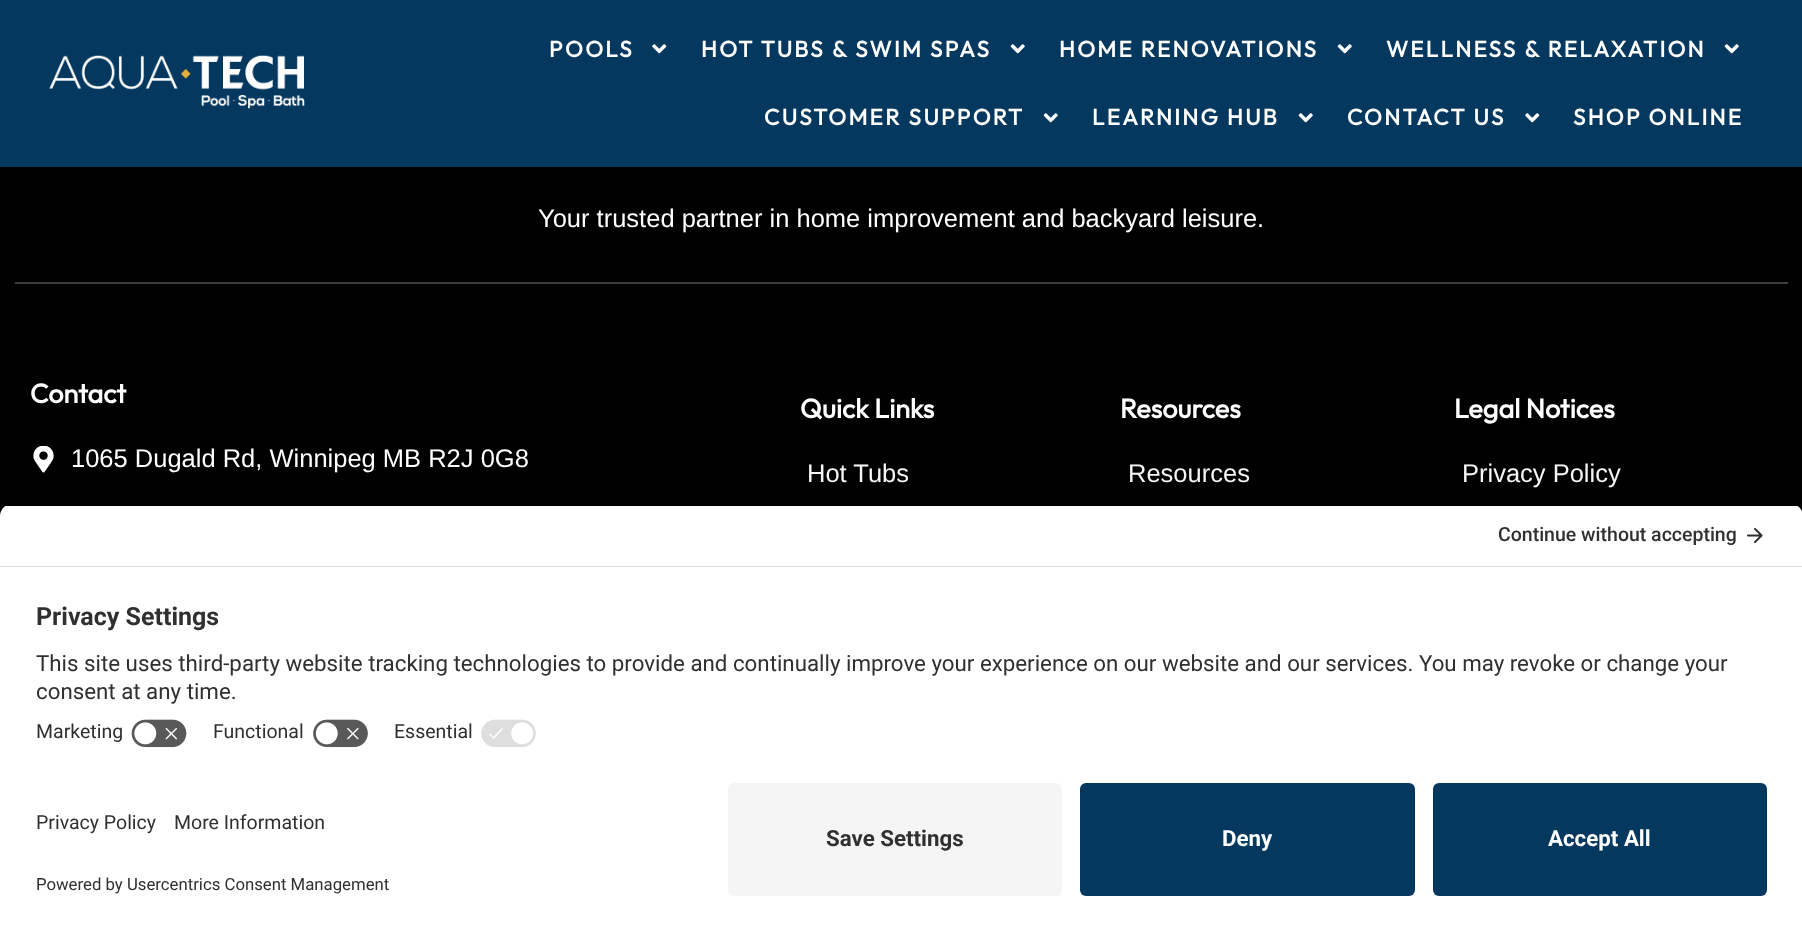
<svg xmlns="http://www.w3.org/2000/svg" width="1802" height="931">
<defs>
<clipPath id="clip1"><path d="M12 504h1779c6.5 0 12 5.5 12 12v255h-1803v-255c0-6.5 5.5-12 12-12z"/></clipPath>
</defs>
<rect width="100%" height="100%" fill="#000"/>
<rect width="1802" height="167" fill="#05385e"/>
<image x="49" y="55" width="256" height="54" href="media/1.png"/>
<text x="549" y="57" style="font-family:Outfit;font-size:22.5px;font-weight:bold;letter-spacing:2.25px;fill:#fff">POOLS</text>
<image x="652" y="44" width="15" height="10" href="media/2.png"/>
<text x="701" y="57" style="font-family:Outfit;font-size:22.5px;font-weight:bold;letter-spacing:2.25px;fill:#fff">HOT TUBS &amp; SWIM SPAS</text>
<image x="1010" y="44" width="15" height="10" href="media/3.png"/>
<text x="1059" y="57" style="font-family:Outfit;font-size:22.5px;font-weight:bold;letter-spacing:2.25px;fill:#fff">HOME RENOVATIONS</text>
<image x="1337" y="44" width="15" height="10" href="media/3.png"/>
<text x="1386" y="57" style="font-family:Outfit;font-size:22.5px;font-weight:bold;letter-spacing:2.25px;fill:#fff">WELLNESS &amp; RELAXATION</text>
<image x="1724" y="44" width="15" height="10" href="media/3.png"/>
<text x="764" y="125" style="font-family:Outfit;font-size:22.5px;font-weight:bold;letter-spacing:2.25px;fill:#fff">CUSTOMER SUPPORT</text>
<image x="1043" y="113" width="15" height="10" href="media/3.png"/>
<text x="1092" y="125" style="font-family:Outfit;font-size:22.5px;font-weight:bold;letter-spacing:2.25px;fill:#fff">LEARNING HUB</text>
<image x="1298" y="113" width="15" height="10" href="media/3.png"/>
<text x="1347" y="125" style="font-family:Outfit;font-size:22.5px;font-weight:bold;letter-spacing:2.25px;fill:#fff">CONTACT US</text>
<image x="1525" y="113" width="15" height="10" href="media/2.png"/>
<text x="1573" y="125" style="font-family:Outfit;font-size:22.5px;font-weight:bold;letter-spacing:2.25px;fill:#fff">SHOP ONLINE</text>
<text x="538" y="227" style="font-family:Liberation Sans;font-size:25.5px;fill:#fff">Your trusted partner in home improvement and backyard leisure.</text>
<rect x="15" y="282" width="1773" height="2" fill="#3c3c3c"/>
<text x="30" y="403" style="font-family:Outfit;font-size:27px;font-weight:bold;fill:#fff">Contact</text>
<image x="33" y="446" width="21" height="27" href="media/4.png"/>
<text x="71" y="467" style="font-family:Liberation Sans;font-size:25.5px;fill:#fff">1065 Dugald Rd, Winnipeg MB R2J 0G8</text>
<text x="800" y="418" style="font-family:Outfit;font-size:27px;font-weight:bold;fill:#fff">Quick Links</text>
<text x="807" y="482" style="font-family:Liberation Sans;font-size:25.5px;fill:#f5f5f5">Hot Tubs</text>
<text x="1120" y="418" style="font-family:Outfit;font-size:27px;font-weight:bold;fill:#fff">Resources</text>
<text x="1128" y="482" style="font-family:Liberation Sans;font-size:25.5px;fill:#f5f5f5">Resources</text>
<text x="1454" y="418" style="font-family:Outfit;font-size:27px;font-weight:bold;fill:#fff">Legal Notices</text>
<text x="1462" y="482" style="font-family:Liberation Sans;font-size:25.5px;fill:#f5f5f5">Privacy Policy</text>
<g clip-path="url(#clip1)">
<rect y="506" width="1802" height="60" fill="#fff"/>
</g>
<rect y="566" width="1802" height="1" fill="#dedede"/>
<text x="1498" y="541" style="font-family:Roboto;font-size:19.5px;font-weight:500;fill:#303030">Continue without accepting</text>
<image x="1747" y="527" width="16" height="16" href="media/5.png"/>
<rect y="567" width="1802" height="364" fill="#fff"/>
<text x="36" y="625" style="font-family:Roboto;font-size:25px;font-weight:bold;fill:#303030">Privacy Settings</text>
<text x="36" y="671" style="font-family:Roboto;font-size:22.3px;fill:#303030">This site uses third-party website tracking technologies to provide and continually improve your experience on our website and our services. You may revoke or change your</text>
<text x="36" y="699" style="font-family:Roboto;font-size:22.3px;fill:#303030">consent at any time.</text>
<text x="36" y="738" style="font-family:Roboto;font-size:19.5px;fill:#303030">Marketing</text>
<image x="131" y="719" width="56" height="29" href="media/6.png"/>
<text x="213" y="738" style="font-family:Roboto;font-size:19.5px;fill:#303030">Functional</text>
<image x="313" y="719" width="55" height="29" href="media/7.png"/>
<text x="394" y="738" style="font-family:Roboto;font-size:19.5px;fill:#303030">Essential</text>
<image x="481" y="719" width="55" height="28" href="media/8.png"/>
<text x="36" y="829" style="font-family:Roboto;font-size:19.5px;fill:#303030">Privacy Policy</text>
<text x="174" y="829" style="font-family:Roboto;font-size:19.5px;fill:#303030">More Information</text>
<text x="36" y="890" style="font-family:Roboto;font-size:16.75px;fill:#303030">Powered by Usercentrics Consent Management</text>
<rect x="728" y="783" width="334" height="113" rx="6" fill="#f5f5f5"/>
<text x="826" y="846" style="font-family:Roboto;font-size:22.3px;font-weight:bold;fill:#303030">Save Settings</text>
<rect x="1080" y="783" width="335" height="113" rx="6" fill="#05385e"/>
<text x="1222" y="846" style="font-family:Roboto;font-size:22.3px;font-weight:bold;fill:#fff">Deny</text>
<rect x="1433" y="783" width="334" height="113" rx="6" fill="#05385e"/>
<text x="1548" y="846" style="font-family:Roboto;font-size:22.3px;font-weight:bold;fill:#fff">Accept All</text>
</svg>
